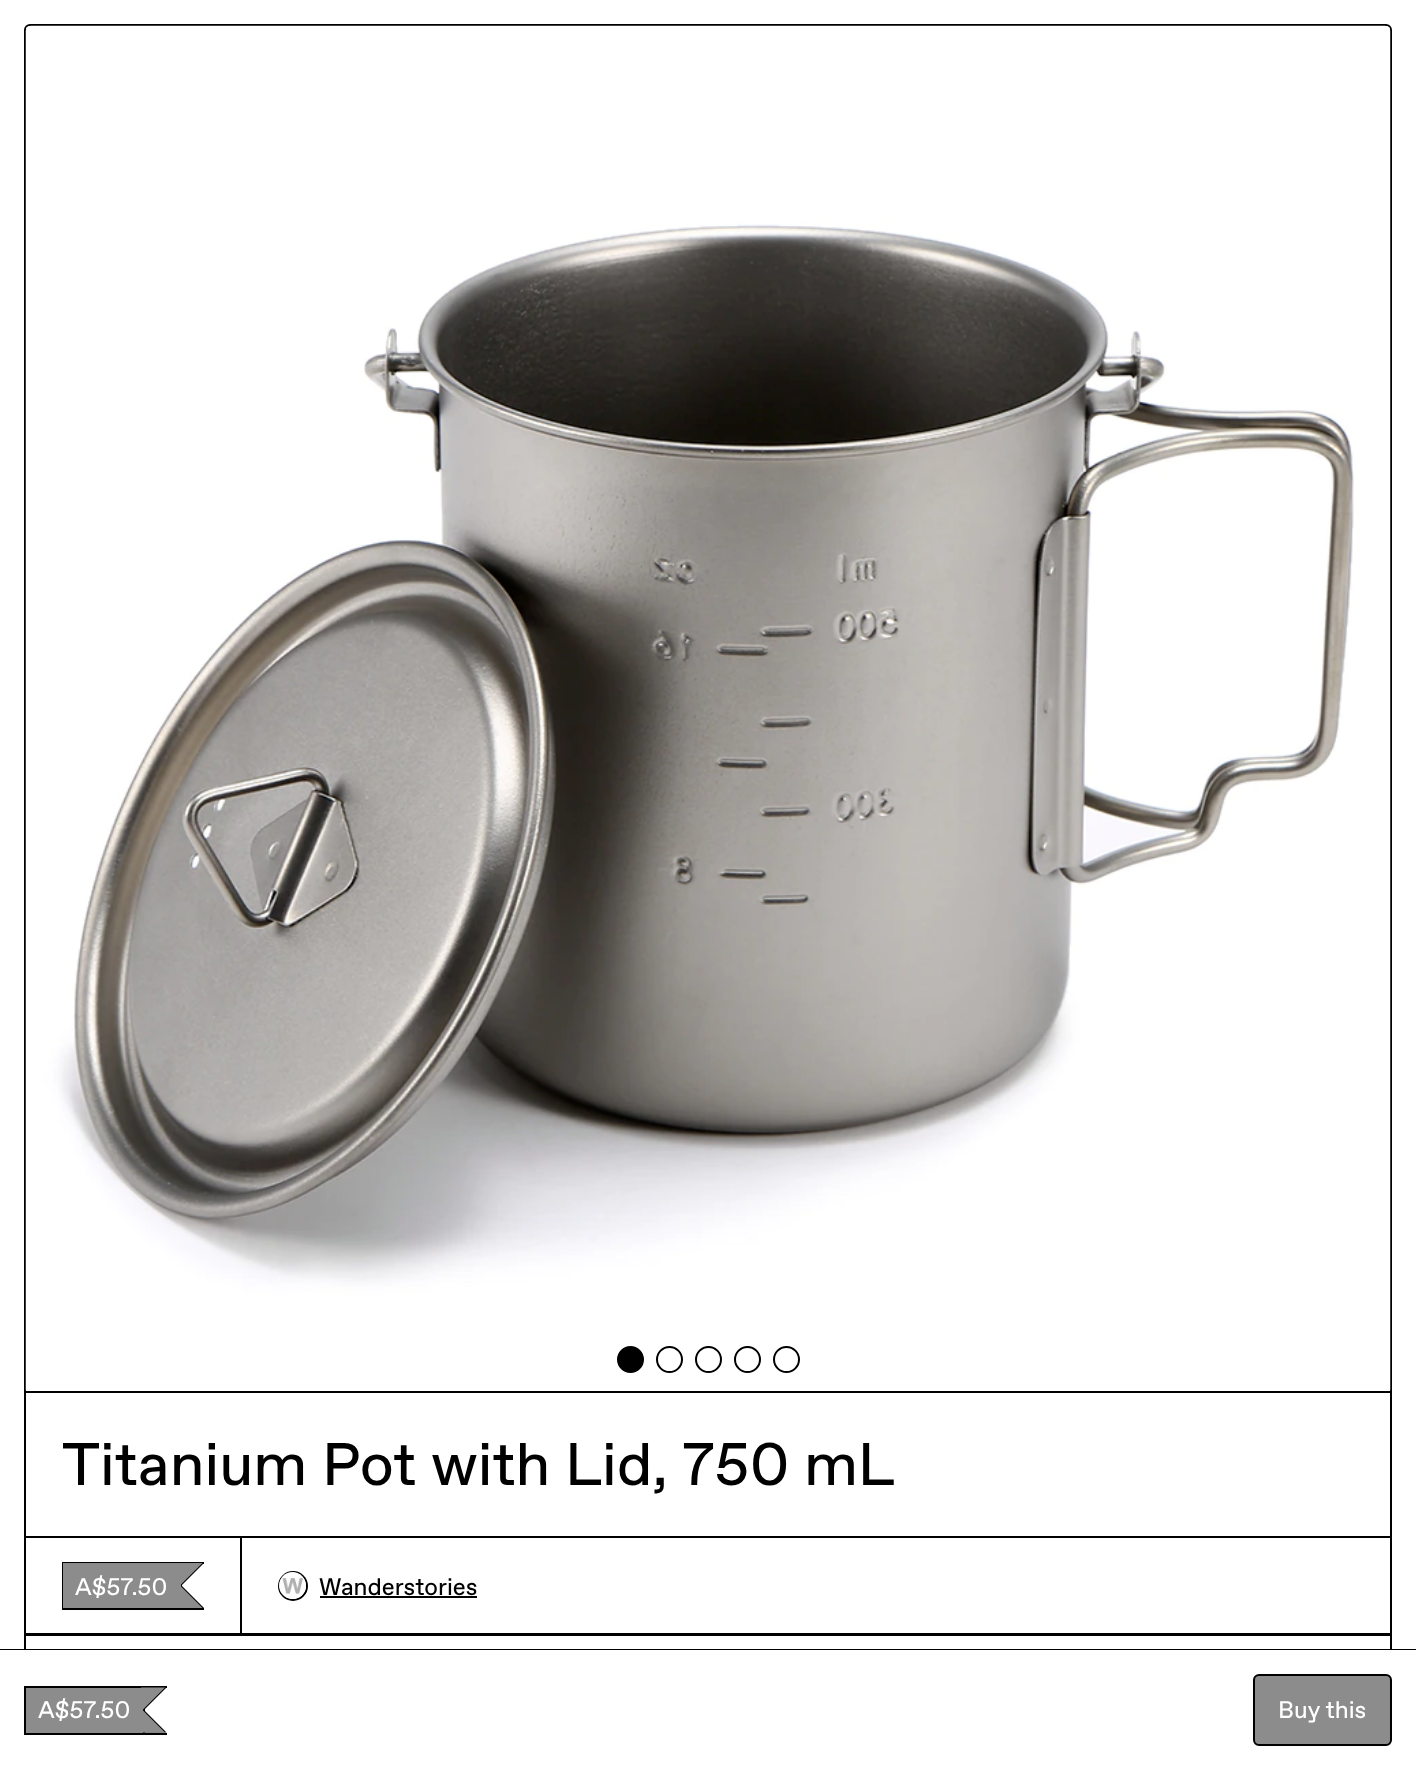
<svg xmlns="http://www.w3.org/2000/svg" width="1416" height="1770">
<rect width="100%" height="100%" fill="#fff"/>
<rect x="25" y="25" width="1366" height="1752" rx="5" fill="none" stroke="#000" stroke-width="2"/>
<rect x="26" y="1391" width="1365" height="2" fill="#000"/>
<image x="25" y="25" width="1366" height="1366" href="media/1.png"/>
<circle cx="630.5" cy="1359.5" r="12.5" fill="#000" stroke="#000" stroke-width="2"/>
<circle cx="669.5" cy="1359.5" r="12.5" fill="none" stroke="#000" stroke-width="2"/>
<circle cx="708.5" cy="1359.5" r="12.5" fill="none" stroke="#000" stroke-width="2"/>
<circle cx="747.5" cy="1359.5" r="12.5" fill="none" stroke="#000" stroke-width="2"/>
<circle cx="786.5" cy="1359.5" r="12.5" fill="none" stroke="#000" stroke-width="2"/>
<text x="62" y="1485" style="font-family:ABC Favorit;font-size:60px;fill:#000">Titanium Pot with Lid, 750 mL</text>
<rect x="25" y="1537" width="216" height="97" fill="none" stroke="#000" stroke-width="2"/>
<rect x="62" y="1562" width="142" height="2" fill="#000"/>
<rect x="62" y="1608" width="142" height="2" fill="#000"/>
<rect x="62" y="1562" width="2" height="48" fill="#000"/>
<rect x="63" y="1563" width="116" height="45" fill="#8c8c8c"/>
<path d="M180 1563h24l-22.5 22.5z" fill="#000"/>
<path d="M204 1608h-24l1.5-22.5z" fill="#000"/>
<rect x="181" y="1583" width="1" height="5" fill="#000"/>
<path d="M178.5 1563h24l-22.5 22.5z" fill="#8c8c8c"/>
<path d="M202.5 1608h-24l1.5-22.5z" fill="#8c8c8c"/>
<rect x="179" y="1563" width="2" height="45" fill="#8c8c8c"/>
<text x="75" y="1595" style="font-family:ABC Favorit;font-size:24px;fill:#fff">A$57.50</text>
<rect x="241" y="1537" width="1150" height="97" fill="none" stroke="#000" stroke-width="2"/>
<circle cx="293" cy="1586" r="14" fill="none" stroke="#000" stroke-width="2"/>
<image x="279" y="1572" width="27" height="27" href="media/2.png"/>
<text x="319" y="1595" style="font-family:ABC Favorit;font-size:24px;fill:#000">Wanderstories</text>
<rect x="320" y="1596" width="157" height="2" fill="#000"/>
<rect x="26" y="1635" width="1365" height="1" fill="#000"/>
<rect y="1649" width="1416" height="1" fill="#000"/>
<rect x="24" y="1650" width="1368" height="120" fill="#fff"/>
<rect x="24" y="1686" width="143" height="2" fill="#000"/>
<rect x="24" y="1733" width="143" height="2" fill="#000"/>
<rect x="24" y="1686" width="2" height="48" fill="#000"/>
<path d="M142.5 1687.5h24l-22.5 22.5zm24 45h-24l1.5-22.5z" fill="#000"/>
<rect x="143" y="1707" width="2" height="26" fill="#000"/>
<path d="M141 1687.5h24l-22.5 22.5zm24 45h-24l1.5-22.5z" fill="#8c8c8c"/>
<rect x="141" y="1688" width="2" height="45" fill="#8c8c8c"/>
<rect x="26" y="1688" width="115" height="45" fill="#8c8c8c"/>
<text x="38" y="1718" style="font-family:ABC Favorit;font-size:24px;fill:#fff">A$57.50</text>
<rect x="1254" y="1675" width="137" height="70" rx="5" fill="#8c8c8c" stroke="#000" stroke-width="2"/>
<text x="1278" y="1718" style="font-family:ABC Favorit;font-size:24px;fill:#fff">Buy this</text>
</svg>
